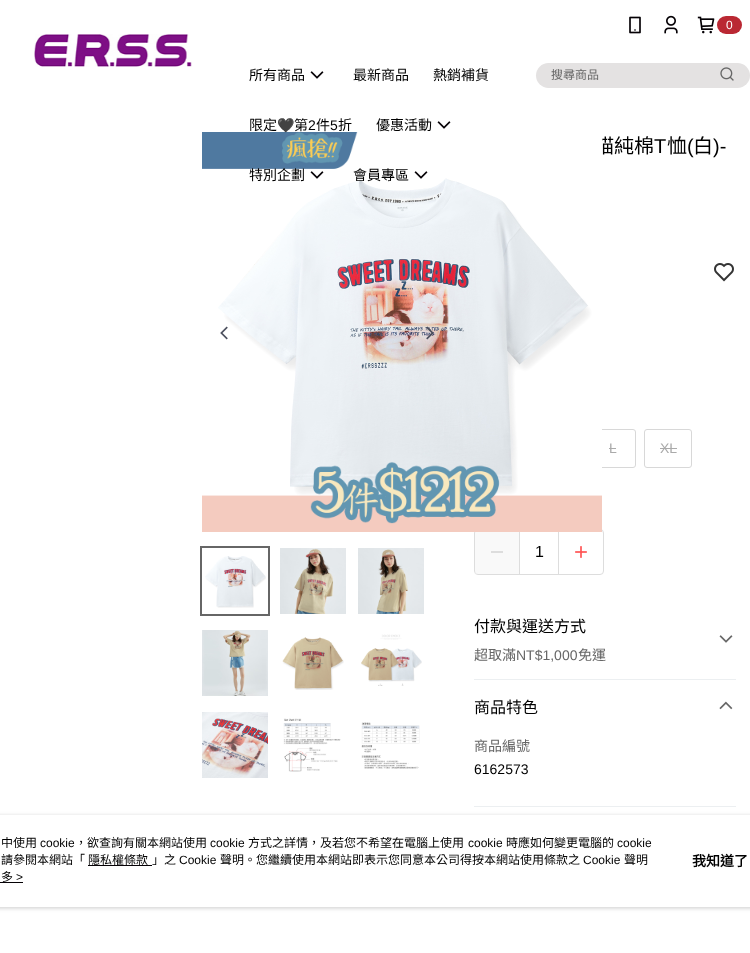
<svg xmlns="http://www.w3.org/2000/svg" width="750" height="953">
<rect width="100%" height="100%" fill="#fff"/>
<image x="34" y="34" width="158" height="33" href="media/1.png"/>
<image x="629" y="16" width="12" height="18" href="media/2.png"/>
<image x="664" y="15" width="14" height="19" href="media/3.png"/>
<image x="697" y="16" width="18" height="18" href="media/4.png"/>
<rect x="717" y="16" width="25" height="18" rx="9" fill="#ba2833"/>
<text x="726" y="29" style="font-family:Liberation Sans;font-size:12px;fill:#fff">0</text>
<text x="249" y="80" style="font-family:Noto Sans CJK TC;font-size:14px;fill:#000">所有商品</text>
<image x="310" y="71" width="14" height="8" href="media/5.png"/>
<text x="353" y="80" style="font-family:Noto Sans CJK TC;font-size:14px;fill:#000">最新商品</text>
<text x="433" y="80" style="font-family:Noto Sans CJK TC;font-size:14px;fill:#000">熱銷補貨</text>
<text x="249" y="130" style="font-family:Noto Sans CJK TC;font-size:14px;fill:#000">限定</text>
<text x="594" y="153" style="font-family:Noto Sans CJK TC;font-size:20px;fill:#000">貓純棉</text>
<rect x="588.5" y="429.5" width="47" height="38" rx="2.5" fill="none" stroke="#d8d8d8"/>
<image x="218" y="136" width="384" height="360" href="media/8.png"/>
<rect x="474.5" y="529.5" width="129" height="45" rx="3.5" fill="none" stroke="#ddd"/>
<rect x="558" y="530" width="1" height="44" fill="#ddd"/>
<rect x="519" y="530" width="1" height="44" fill="#ddd"/>
<image x="202" y="132" width="400" height="400" href="media/7.png"/>
<text x="277" y="130" style="font-family:Noto Color Emoji;font-size:14px;fill:#000">🖤</text>
<text x="294" y="130" style="font-family:Noto Sans CJK TC;font-size:14px;fill:#000">第</text>
<text x="308" y="130" style="font-family:Liberation Sans;font-size:14px;fill:#000">2</text>
<text x="316" y="130" style="font-family:Noto Sans CJK TC;font-size:14px;fill:#000">件</text>
<text x="330" y="130" style="font-family:Liberation Sans;font-size:14px;fill:#000">5</text>
<text x="338" y="130" style="font-family:Noto Sans CJK TC;font-size:14px;fill:#000">折</text>
<text x="376" y="130" style="font-family:Noto Sans CJK TC;font-size:14px;fill:#000">優惠活動</text>
<image x="437" y="121" width="14" height="8" href="media/5.png"/>
<text x="249" y="180" style="font-family:Noto Sans CJK TC;font-size:14px;fill:#000">特別企劃</text>
<image x="310" y="171" width="14" height="8" href="media/5.png"/>
<text x="353" y="180" style="font-family:Noto Sans CJK TC;font-size:14px;fill:#000">會員專區</text>
<image x="414" y="171" width="14" height="8" href="media/5.png"/>
<rect x="536" y="63" width="214" height="25" rx="12.5" fill="#e4e2e2"/>
<text x="551" y="79" style="font-family:Noto Sans CJK TC;font-size:12px;fill:#666">搜尋商品</text>
<image x="720" y="67" width="14" height="14" href="media/6.png"/>
<image x="220" y="326" width="8" height="14" href="media/9.png"/>
<image x="426" y="326" width="8" height="14" href="media/10.png"/>
<image x="205" y="556" width="61" height="52" href="media/11.png"/>
<rect x="201" y="547" width="68" height="68" fill="none" stroke="#666" stroke-width="2"/>
<image x="280" y="548" width="66" height="66" href="media/12.png"/>
<image x="358" y="548" width="66" height="66" href="media/13.png"/>
<image x="202" y="630" width="66" height="66" href="media/14.png"/>
<image x="282" y="637" width="62" height="53" href="media/15.png"/>
<image x="361" y="634" width="61" height="52" href="media/16.png"/>
<image x="202" y="712" width="66" height="66" href="media/17.png"/>
<image x="283" y="718" width="58" height="54" href="media/18.png"/>
<image x="361" y="722" width="59" height="47" href="media/19.png"/>
<text x="654" y="153" style="font-family:Liberation Sans;font-size:20px;fill:#000">T</text>
<text x="667" y="153" style="font-family:Noto Sans CJK TC;font-size:20px;fill:#000">恤</text>
<text x="687" y="153" style="font-family:Liberation Sans;font-size:20px;fill:#000">(</text>
<text x="693" y="153" style="font-family:Noto Sans CJK TC;font-size:20px;fill:#000">白</text>
<text x="713" y="153" style="font-family:Liberation Sans;font-size:20px;fill:#000">)-</text>
<image x="714" y="263" width="20" height="19" href="media/20.png"/>
<text x="609" y="453" style="font-family:Liberation Sans;font-size:14px;fill:#aaa">L</text>
<rect x="609" y="448" width="7" height="1" fill="#aaa"/>
<rect x="644.5" y="429.5" width="47" height="38" rx="2.5" fill="none" stroke="#d8d8d8"/>
<text x="660" y="453" style="font-family:Liberation Sans;font-size:14px;fill:#aaa">XL</text>
<rect x="660" y="448" width="17" height="1" fill="#aaa"/>
<rect x="475" y="532" width="44" height="42" fill="#f1f1f166"/>
<rect x="491" y="551" width="12" height="2" fill="#ddd"/>
<text x="535" y="557" style="font-family:Liberation Sans;font-size:16px;fill:#000">1</text>
<image x="575" y="546" width="12" height="12" href="media/21.png"/>
<rect x="474" y="679" width="262" height="1" fill="#eceff1"/>
<text x="474" y="632" style="font-family:Noto Sans CJK TC;font-size:16px;fill:#000">付款與運送方式</text>
<text x="474" y="660" style="font-family:Noto Sans CJK TC;font-size:14px;fill:#666">超取滿</text>
<text x="516" y="660" style="font-family:Liberation Sans;font-size:14px;fill:#666">NT$1,000</text>
<text x="578" y="660" style="font-family:Noto Sans CJK TC;font-size:14px;fill:#666">免運</text>
<image x="719" y="635" width="14" height="8" href="media/22.png"/>
<rect x="474" y="806" width="262" height="1" fill="#eceff1"/>
<text x="474" y="713" style="font-family:Noto Sans CJK TC;font-size:16px;fill:#000">商品特色</text>
<image x="719" y="701" width="14" height="9" href="media/23.png"/>
<text x="474" y="751" style="font-family:Noto Sans CJK TC;font-size:14px;fill:#666">商品編號</text>
<text x="474" y="774" style="font-family:Liberation Sans;font-size:14px;fill:#000">6162573</text>
<rect x="-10" y="816" width="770" height="92" rx="4" fill="#97979780" filter="blur(2px)"/>
<rect y="815" width="750" height="92" fill="#fff"/>
<text x="1" y="847" style="font-family:Noto Sans CJK TC;font-size:12px;fill:#000">中使用</text>
<text x="40" y="847" style="font-family:Liberation Sans;font-size:12px;fill:#000">cookie</text>
<text x="75" y="847" style="font-family:Noto Sans CJK TC;font-size:12px;fill:#000">，欲查詢有關本網站使用</text>
<text x="210" y="847" style="font-family:Liberation Sans;font-size:12px;fill:#000">cookie</text>
<text x="248" y="847" style="font-family:Noto Sans CJK TC;font-size:12px;fill:#000">方式之詳情，及若您不希望在電腦上使用</text>
<text x="468" y="847" style="font-family:Liberation Sans;font-size:12px;fill:#000">cookie</text>
<text x="506" y="847" style="font-family:Noto Sans CJK TC;font-size:12px;fill:#000">時應如何變更電腦的</text>
<text x="617" y="847" style="font-family:Liberation Sans;font-size:12px;fill:#000">cookie</text>
<text x="1" y="864" style="font-family:Noto Sans CJK TC;font-size:12px;fill:#000">請參閱本網站「</text>
<text x="88" y="864" style="font-family:Noto Sans CJK TC;font-size:12px;fill:#000">隱私權條款</text>
<rect x="88" y="865" width="64" height="1" fill="#050105"/>
<text x="152" y="864" style="font-family:Noto Sans CJK TC;font-size:12px;fill:#000">」之</text>
<text x="179" y="864" style="font-family:Liberation Sans;font-size:12px;fill:#000">Cookie</text>
<text x="220" y="864" style="font-family:Noto Sans CJK TC;font-size:12px;fill:#000">聲明。您繼續使用本網站即表示您同意本公司得按本網站使用條款之</text>
<text x="583" y="864" style="font-family:Liberation Sans;font-size:12px;fill:#000">Cookie</text>
<text x="624" y="864" style="font-family:Noto Sans CJK TC;font-size:12px;fill:#000">聲明</text>
<text x="1" y="881" style="font-family:Noto Sans CJK TC;font-size:12px;fill:#000">多</text>
<text x="16" y="881" style="font-family:Liberation Sans;font-size:12px;fill:#000">&gt;</text>
<rect y="882" width="23" height="1" fill="#050105"/>
<text x="692" y="866" style="font-family:Noto Sans CJK TC;font-size:14px;font-weight:bold;fill:#000">我知道了</text>
</svg>
